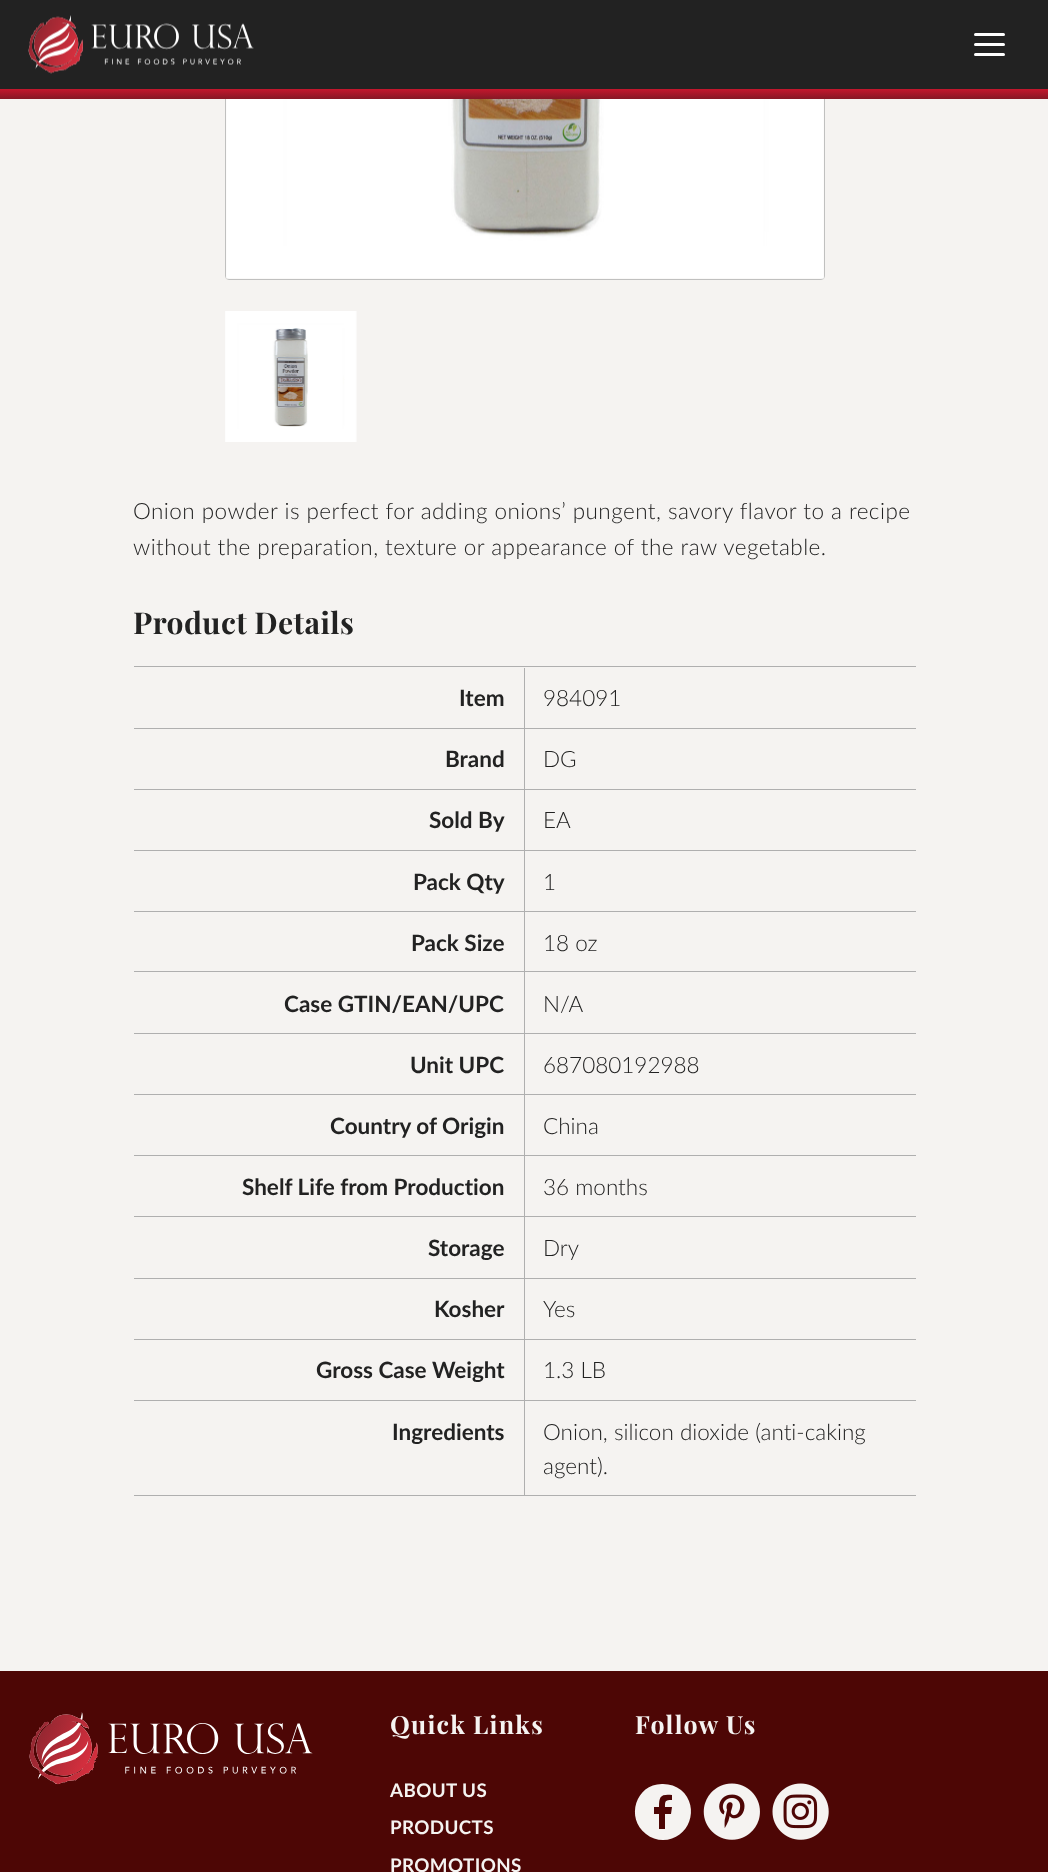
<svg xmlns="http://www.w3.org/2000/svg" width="1048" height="1872">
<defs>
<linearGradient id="g1" gradientUnits="userSpaceOnUse" x1="524" y1="89" x2="524" y2="99"><stop offset="0" stop-color="#c4172d"/><stop offset="1" stop-color="#861825"/></linearGradient>
</defs>
<rect width="100%" height="100%" fill="#f5f3f1"/>
<rect x="225.5" y="-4.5" width="599" height="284" rx="3.5" fill="none" stroke="#c0c0bf"/>
<rect width="1048" height="89" fill="#222"/>
<image x="28" y="15" width="226" height="59" href="media/1.png"/>
<rect x="974" y="43" width="31" height="3" rx="1.5" fill="#fff"/>
<rect x="974" y="33" width="31" height="3" rx="1.5" fill="#fff"/>
<rect x="974" y="53" width="31" height="3" rx="1.5" fill="#fff"/>
<rect y="89" width="1048" height="10" fill="url(#g1)"/>
<image x="226" y="99" width="598" height="180" href="media/2.png"/>
<image x="225" y="311" width="132" height="131" href="media/3.png"/>
<text x="133" y="519" style="font-family:Lato;font-size:22.5px;font-weight:300;letter-spacing:0.45px;fill:#222">Onion powder is perfect for adding onions’ pungent, savory flavor to a recipe</text>
<text x="133" y="555" style="font-family:Lato;font-size:22.5px;font-weight:300;letter-spacing:0.45px;fill:#222">without the preparation, texture or appearance of the raw vegetable.</text>
<text x="133" y="634" style="font-family:Playfair Display;font-size:30px;font-weight:bold;letter-spacing:0.4px;fill:#222">Product Details</text>
<rect x="134" y="666" width="782" height="1" fill="#afafaf"/>
<rect x="524" y="668" width="1" height="828" fill="#afafaf"/>
<rect x="134" y="728" width="782" height="1" fill="#afafaf"/>
<text x="459" y="706" style="font-family:Lato;font-size:22.5px;font-weight:bold;fill:#222">Item</text>
<text x="543" y="706" style="font-family:Lato;font-size:22.5px;font-weight:300;fill:#222">984091</text>
<rect x="134" y="789" width="782" height="1" fill="#afafaf"/>
<text x="445" y="767" style="font-family:Lato;font-size:22.5px;font-weight:bold;fill:#222">Brand</text>
<text x="543" y="767" style="font-family:Lato;font-size:22.5px;font-weight:300;fill:#222">DG</text>
<rect x="134" y="850" width="782" height="1" fill="#afafaf"/>
<text x="429" y="828" style="font-family:Lato;font-size:22.5px;font-weight:bold;fill:#222">Sold By</text>
<text x="543" y="828" style="font-family:Lato;font-size:22.5px;font-weight:300;fill:#222">EA</text>
<rect x="134" y="911" width="782" height="1" fill="#afafaf"/>
<text x="413" y="890" style="font-family:Lato;font-size:22.5px;font-weight:bold;fill:#222">Pack Qty</text>
<text x="543" y="890" style="font-family:Lato;font-size:22.5px;font-weight:300;fill:#222">1</text>
<rect x="134" y="971" width="782" height="1" fill="#afafaf"/>
<text x="411" y="951" style="font-family:Lato;font-size:22.5px;font-weight:bold;fill:#222">Pack Size</text>
<text x="543" y="951" style="font-family:Lato;font-size:22.5px;font-weight:300;fill:#222">18 oz</text>
<rect x="134" y="1033" width="782" height="1" fill="#afafaf"/>
<text x="284" y="1012" style="font-family:Lato;font-size:22.5px;font-weight:bold;fill:#222">Case GTIN/EAN/UPC</text>
<text x="543" y="1012" style="font-family:Lato;font-size:22.5px;font-weight:300;fill:#222">N/A</text>
<rect x="134" y="1094" width="782" height="1" fill="#afafaf"/>
<text x="410" y="1073" style="font-family:Lato;font-size:22.5px;font-weight:bold;fill:#222">Unit UPC</text>
<text x="543" y="1073" style="font-family:Lato;font-size:22.5px;font-weight:300;fill:#222">687080192988</text>
<rect x="134" y="1155" width="782" height="1" fill="#afafaf"/>
<text x="330" y="1134" style="font-family:Lato;font-size:22.5px;font-weight:bold;fill:#222">Country of Origin</text>
<text x="543" y="1134" style="font-family:Lato;font-size:22.5px;font-weight:300;fill:#222">China</text>
<rect x="134" y="1216" width="782" height="1" fill="#afafaf"/>
<text x="242" y="1195" style="font-family:Lato;font-size:22.5px;font-weight:bold;fill:#222">Shelf Life from Production</text>
<text x="543" y="1195" style="font-family:Lato;font-size:22.5px;font-weight:300;fill:#222">36 months</text>
<rect x="134" y="1278" width="782" height="1" fill="#afafaf"/>
<text x="428" y="1256" style="font-family:Lato;font-size:22.5px;font-weight:bold;fill:#222">Storage</text>
<text x="543" y="1256" style="font-family:Lato;font-size:22.5px;font-weight:300;fill:#222">Dry</text>
<rect x="134" y="1339" width="782" height="1" fill="#afafaf"/>
<text x="434" y="1317" style="font-family:Lato;font-size:22.5px;font-weight:bold;fill:#222">Kosher</text>
<text x="543" y="1317" style="font-family:Lato;font-size:22.5px;font-weight:300;fill:#222">Yes</text>
<rect x="134" y="1400" width="782" height="1" fill="#afafaf"/>
<text x="316" y="1378" style="font-family:Lato;font-size:22.5px;font-weight:bold;fill:#222">Gross Case Weight</text>
<text x="543" y="1378" style="font-family:Lato;font-size:22.5px;font-weight:300;fill:#222">1.3 LB</text>
<rect x="134" y="1495" width="782" height="1" fill="#afafaf"/>
<text x="392" y="1440" style="font-family:Lato;font-size:22.5px;font-weight:bold;fill:#222">Ingredients</text>
<text x="543" y="1440" style="font-family:Lato;font-size:22.5px;font-weight:300;fill:#222">Onion, silicon dioxide (anti-caking</text>
<text x="543" y="1474" style="font-family:Lato;font-size:22.5px;font-weight:300;fill:#222">agent).</text>
<rect y="1671" width="1048" height="201" fill="#4d0605"/>
<image x="29" y="1712" width="284" height="73" href="media/4.png"/>
<text x="390" y="1734" style="font-family:Playfair Display;font-size:25px;font-weight:bold;letter-spacing:1.25px;fill:#f5f3f1">Quick Links</text>
<text x="390" y="1797" style="font-family:Lato;font-size:18.75px;font-weight:bold;letter-spacing:0.4px;fill:#f5f3f1">ABOUT US</text>
<text x="390" y="1834" style="font-family:Lato;font-size:18.75px;font-weight:bold;letter-spacing:0.4px;fill:#f5f3f1">PRODUCTS</text>
<text x="390" y="1872" style="font-family:Lato;font-size:18.75px;font-weight:bold;letter-spacing:0.4px;fill:#f5f3f1">PROMOTIONS</text>
<text x="635" y="1734" style="font-family:Playfair Display;font-size:25px;font-weight:bold;letter-spacing:1.25px;fill:#f5f3f1">Follow Us</text>
<path d="M663 1840c-6 0-12-2-17-6c-21-16-10-51 17-50c7 0 13 2 18 6c20 17 8 50-18 50zm-9-33v7h5v15h6v-15h6l1-7h-7c0-6 0-7 7-7v-5c-11-1-13 1-13 12z" fill="#f5f3f1"/>
<image x="703" y="1783" width="57" height="57" href="media/5.png"/>
<image x="772" y="1783" width="57" height="57" href="media/6.png"/>
</svg>
